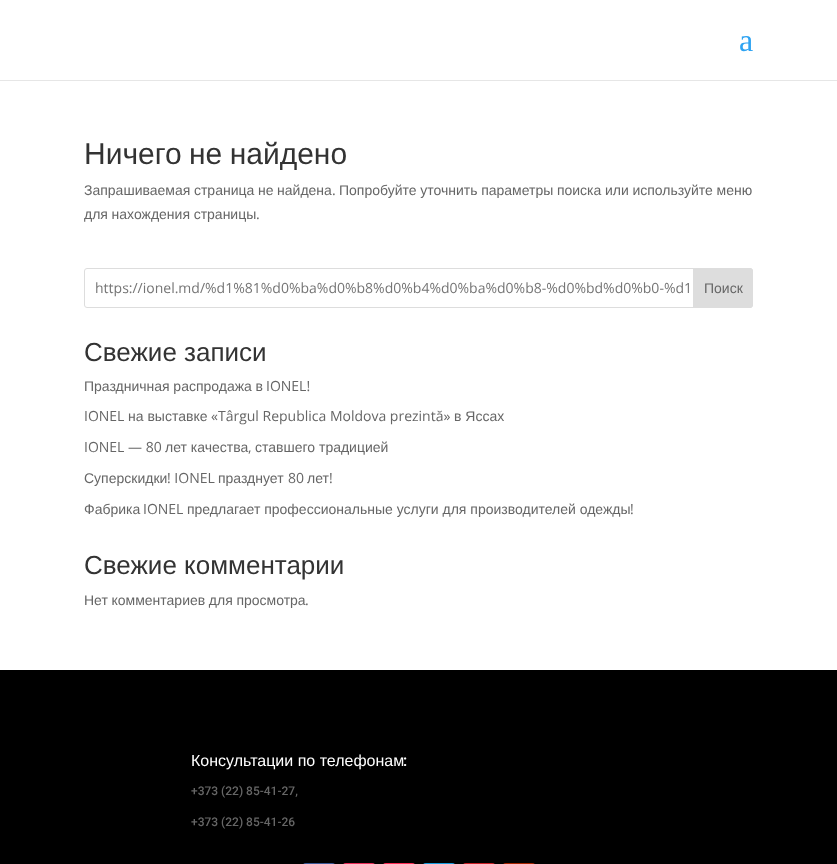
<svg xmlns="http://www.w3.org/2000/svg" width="837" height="864">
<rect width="100%" height="100%" fill="#fff"/>
<rect y="80" width="837" height="1" fill="#e6e6e6"/>
<text x="739" y="51" style="font-family:Liberation Serif;font-size:32px;fill:#2ea3f2">a</text>
<text x="84" y="164" word-spacing="-1" style="font-family:Liberation Sans;font-size:30px;fill:#333">Ничего не найдено</text>
<text x="84" y="195" word-spacing="-0.25" style="font-family:Liberation Sans;font-size:14px;fill:#666">Запрашиваемая страница не найдена</text>
<text x="332" y="195" style="font-family:Open Sans;font-size:14px;fill:#666">.</text>
<text x="339" y="195" word-spacing="-0.25" style="font-family:Liberation Sans;font-size:14px;fill:#666">Попробуйте уточнить параметры поиска или используйте меню</text>
<text x="84" y="219" word-spacing="-0.25" style="font-family:Liberation Sans;font-size:14px;fill:#666">для нахождения страницы</text>
<text x="256" y="219" style="font-family:Open Sans;font-size:14px;fill:#666">.</text>
<rect x="84.5" y="268.5" width="668" height="39" rx="2.5" fill="none" stroke="#ddd"/>
<text x="95" y="293" style="font-family:Open Sans;font-size:14px;fill:#757575">https://ionel.md/%d1%81%d0%ba%d0%b8%d0%b4%d0%ba%d0%b8-%d0%bd%d0%b0-%d1</text>
<path d="M693.5 268.5h56.5c1.5 0 2.5 1 2.5 2.5v34c0 1.5-1 2.5-2.5 2.5h-56.5z" fill="#ddd" stroke="#ddd"/>
<text x="704" y="293" style="font-family:Liberation Sans;font-size:14px;fill:#666">Поиск</text>
<text x="84" y="361" style="font-family:Liberation Sans;font-size:26px;fill:#333">Свежие записи</text>
<text x="84" y="391" word-spacing="-0.25" style="font-family:Liberation Sans;font-size:14px;fill:#666">Праздничная распродажа в</text>
<text x="266" y="391" style="font-family:Open Sans;font-size:14px;fill:#666">IONEL!</text>
<text x="84" y="421" style="font-family:Open Sans;font-size:14px;fill:#666">IONEL</text>
<text x="128" y="421" style="font-family:Liberation Sans;font-size:14px;fill:#666">на выставке</text>
<text x="211" y="421" style="font-family:Open Sans;font-size:14px;fill:#666">«Târgul Republica Moldova prezintă»</text>
<text x="454" y="421" style="font-family:Liberation Sans;font-size:14px;fill:#666">в Яссах</text>
<text x="84" y="452" style="font-family:Open Sans;font-size:14px;fill:#666">IONEL — 80</text>
<text x="165" y="452" style="font-family:Liberation Sans;font-size:14px;fill:#666">лет качества</text>
<text x="248" y="452" style="font-family:Open Sans;font-size:14px;fill:#666">,</text>
<text x="255" y="452" style="font-family:Liberation Sans;font-size:14px;fill:#666">ставшего традицией</text>
<text x="84" y="483" style="font-family:Liberation Sans;font-size:14px;fill:#666">Суперскидки</text>
<text x="167" y="483" style="font-family:Open Sans;font-size:14px;fill:#666">! IONEL</text>
<text x="218" y="483" style="font-family:Liberation Sans;font-size:14px;fill:#666">празднует</text>
<text x="288" y="483" style="font-family:Open Sans;font-size:14px;fill:#666">80</text>
<text x="307" y="483" style="font-family:Liberation Sans;font-size:14px;fill:#666">лет</text>
<text x="329" y="483" style="font-family:Open Sans;font-size:14px;fill:#666">!</text>
<text x="84" y="514" style="font-family:Liberation Sans;font-size:14px;fill:#666">Фабрика</text>
<text x="143" y="514" style="font-family:Open Sans;font-size:14px;fill:#666">IONEL</text>
<text x="187" y="514" style="font-family:Liberation Sans;font-size:14px;fill:#666">предлагает профессиональные услуги для производителей одежды</text>
<text x="630" y="514" style="font-family:Open Sans;font-size:14px;fill:#666">!</text>
<text x="84" y="574" style="font-family:Liberation Sans;font-size:26px;fill:#333">Свежие комментарии</text>
<text x="84" y="605" word-spacing="-0.25" style="font-family:Liberation Sans;font-size:14px;fill:#666">Нет комментариев для просмотра</text>
<text x="305" y="605" style="font-family:Open Sans;font-size:14px;fill:#666">.</text>
<rect y="670" width="837" height="194" fill="#000"/>
<text x="191" y="766" style="font-family:Liberation Sans;font-size:16px;fill:#fff">Консультации по телефонам</text>
<text x="403" y="766" style="font-family:Roboto;font-size:16px;font-weight:500;fill:#fff">:</text>
<text x="191" y="795" style="font-family:Roboto;font-size:12px;font-weight:500;fill:#666">+373 (22) 85-41-27,</text>
<text x="191" y="826" style="font-family:Roboto;font-size:12px;font-weight:500;fill:#666">+373 (22) 85-41-26</text>
<rect x="303" y="863" width="32" height="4" rx="3" fill="#3b5998"/>
<rect x="343" y="863" width="32" height="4" rx="3" fill="#ea2c59"/>
<rect x="383" y="863" width="32" height="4" rx="3" fill="#fe2c55"/>
<rect x="423" y="863" width="32" height="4" rx="3" fill="#179cde"/>
<rect x="463" y="863" width="32" height="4" rx="3" fill="#cb2027"/>
<rect x="503" y="863" width="32" height="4" rx="3" fill="#a82400"/>
</svg>
